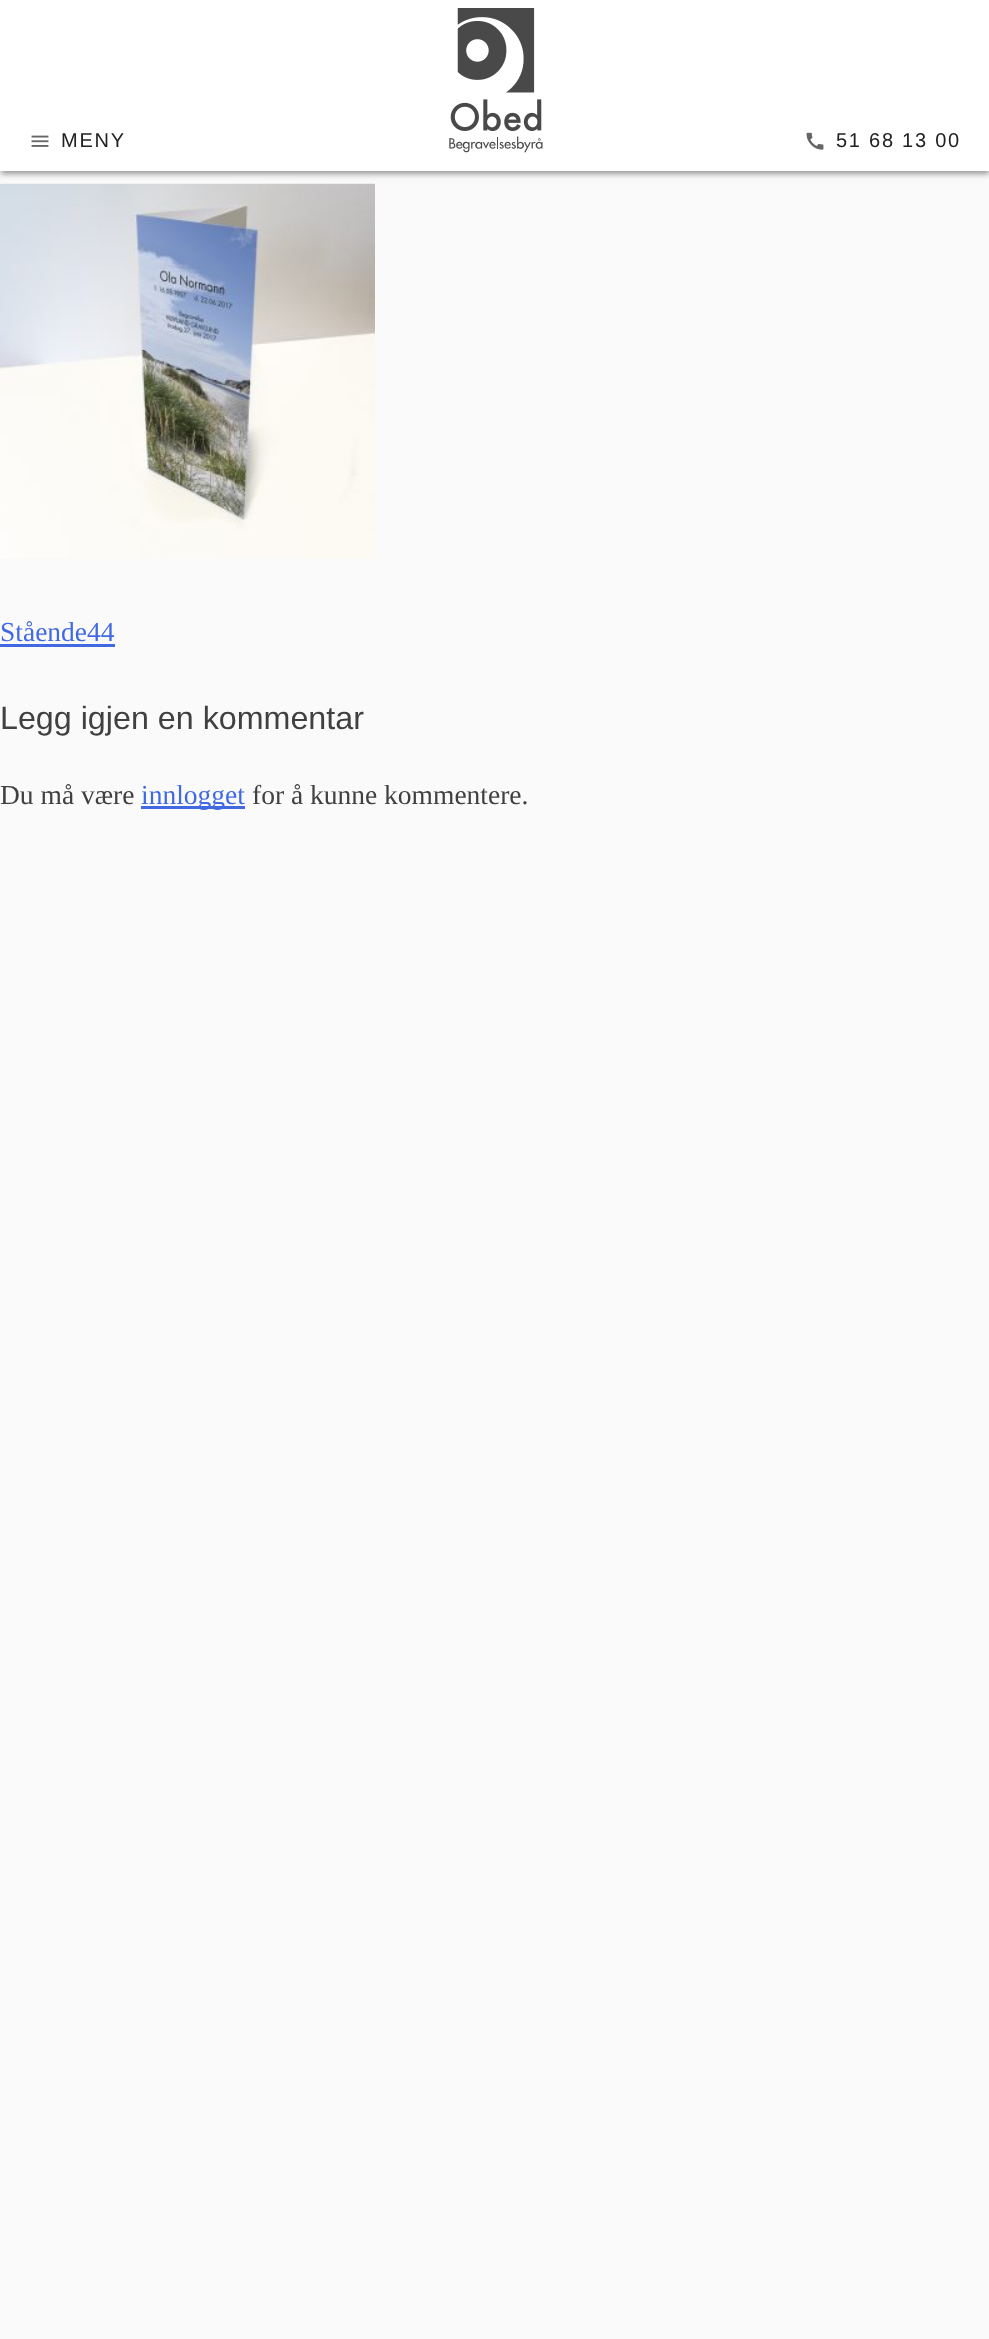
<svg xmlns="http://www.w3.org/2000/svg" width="989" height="2339">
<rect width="100%" height="100%" fill="#fafafa"/>
<image x="0" y="183" width="375" height="376" href="media/4.png"/>
<rect y="1" width="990" height="172" fill="#0000001f" filter="blur(5px)"/>
<rect y="4" width="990" height="171" fill="#00000024" filter="blur(2.5px)"/>
<rect x="3" y="6" width="985" height="167" fill="#00000033" filter="blur(2px)"/>
<rect width="989" height="171" fill="#fff"/>
<image x="31" y="135" width="18" height="12" href="media/1.png"/>
<text x="61" y="147" style="font-family:Liberation Sans;font-size:20px;letter-spacing:1.75px;fill:#212121">MENY</text>
<image x="449" y="8" width="94" height="145" href="media/2.png"/>
<image x="806" y="132" width="18" height="18" href="media/3.png"/>
<text x="836" y="147" style="font-family:Liberation Sans;font-size:20px;letter-spacing:1.75px;fill:#212121">51 68 13 00</text>
<text x="0" y="641" style="font-family:Liberation Serif;font-size:27.5px;fill:#4169e1">Stående44</text>
<rect y="644" width="115" height="3" fill="#4169e1"/>
<text x="0" y="729" style="font-family:Liberation Sans;font-size:32.25px;fill:#404040">Legg igjen en kommentar</text>
<text x="0" y="804" style="font-family:Liberation Serif;font-size:27.5px;fill:#404040">Du må være</text>
<rect x="141" y="806" width="104" height="3" fill="#4169e1"/>
<text x="141" y="804" style="font-family:Liberation Serif;font-size:27.5px;fill:#4169e1">innlogget</text>
<text x="252" y="804" style="font-family:Liberation Serif;font-size:27.5px;fill:#404040">for å kunne kommentere.</text>
</svg>
